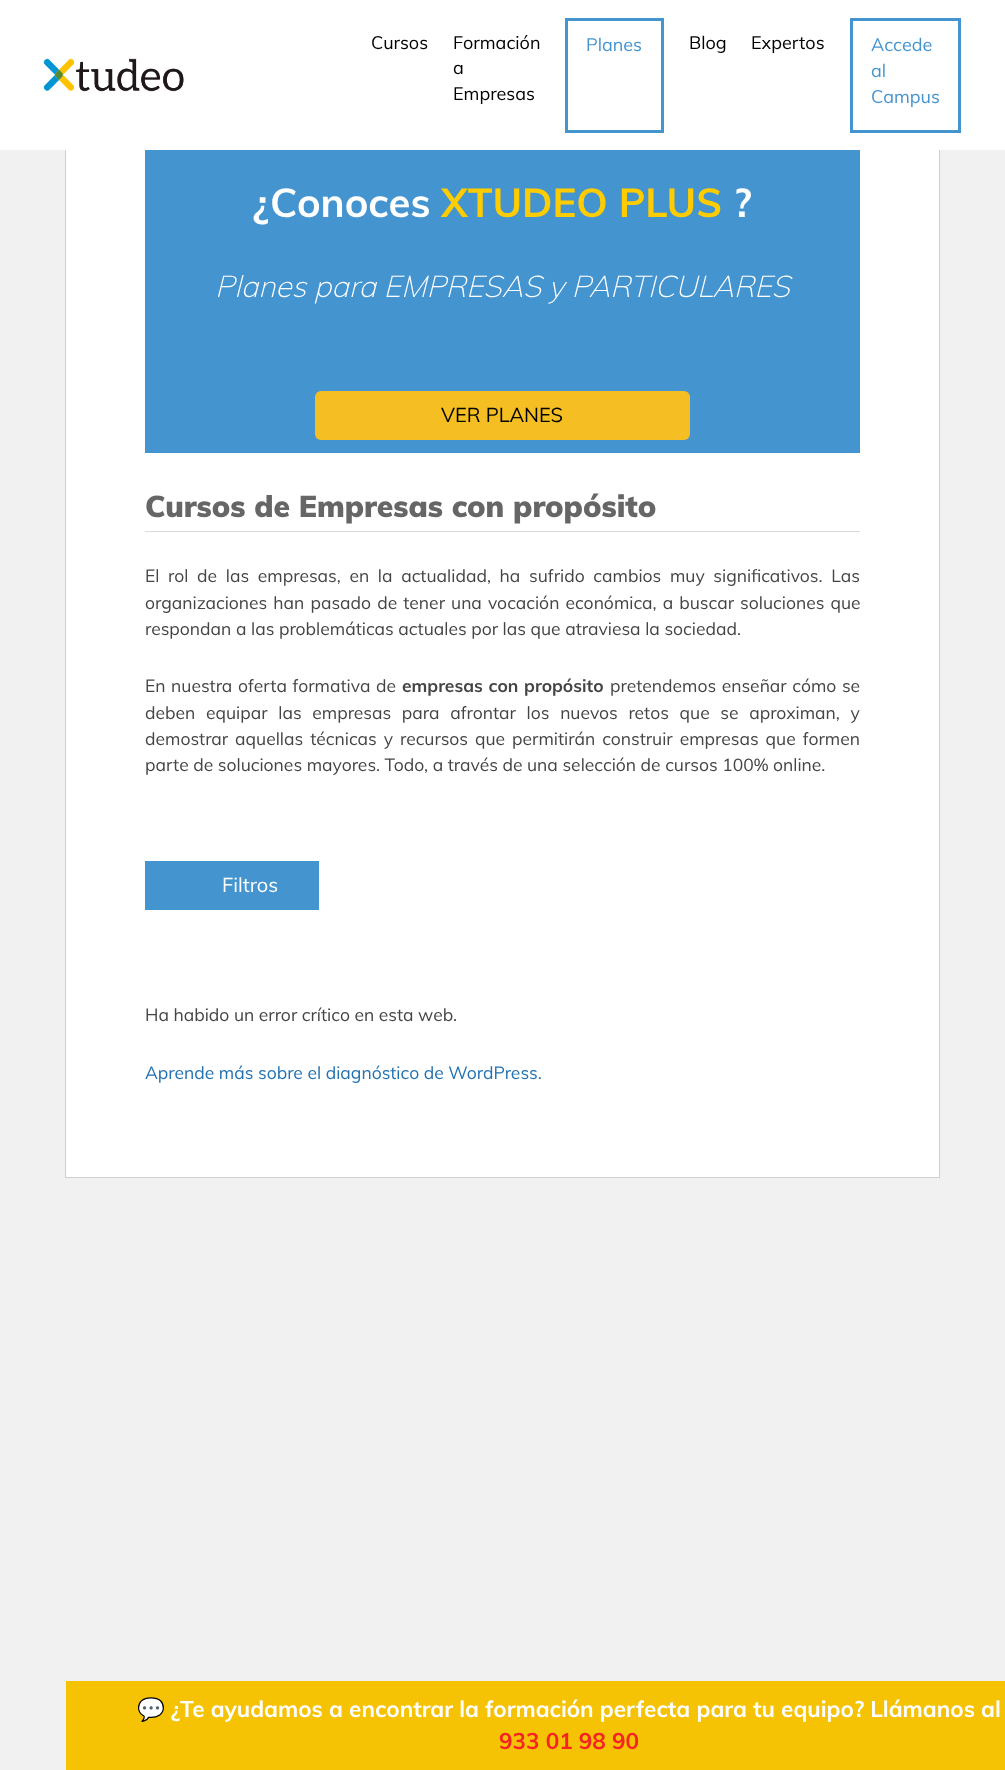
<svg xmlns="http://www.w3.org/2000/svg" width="1005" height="1770">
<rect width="100%" height="100%" fill="#f1f1f1"/>
<rect x="66" y="150" width="873" height="1027" fill="#fff"/>
<rect x="65.5" y="63.5" width="874" height="1114" fill="none" stroke="#ccd0d4"/>
<rect width="1005" height="150" fill="#fff"/>
<image x="43" y="58" width="141" height="34" href="media/1.png"/>
<text x="371" y="49" style="font-family:Muli;font-size:18px;fill:#000">Cursos</text>
<text x="453" y="49" style="font-family:Muli;font-size:18px;fill:#000">Formación</text>
<text x="453" y="74" style="font-family:Muli;font-size:18px;fill:#000">a</text>
<text x="453" y="100" style="font-family:Muli;font-size:18px;fill:#000">Empresas</text>
<rect x="566.5" y="19.5" width="96" height="112" fill="none" stroke="#4494d0" stroke-width="3"/>
<text x="586" y="51" style="font-family:Muli;font-size:18px;fill:#4494d0">Planes</text>
<text x="689" y="49" style="font-family:Muli;font-size:18px;fill:#000">Blog</text>
<text x="751" y="49" style="font-family:Muli;font-size:18px;fill:#000">Expertos</text>
<rect x="851.5" y="19.5" width="108" height="112" fill="none" stroke="#4494d0" stroke-width="3"/>
<text x="871" y="51" style="font-family:Muli;font-size:18px;fill:#4494d0">Accede</text>
<text x="871" y="77" style="font-family:Muli;font-size:18px;fill:#4494d0">al</text>
<text x="871" y="103" style="font-family:Muli;font-size:18px;fill:#4494d0">Campus</text>
<rect x="145" y="150" width="715" height="303" fill="#4494d0"/>
<text x="253" y="217" style="font-family:Muli;font-size:40px;font-weight:bold;fill:#fff">¿Conoces</text>
<text x="441" y="217" style="font-family:Muli;font-size:40px;font-weight:bold;fill:#fc0">XTUDEO PLUS</text>
<text x="733" y="217" style="font-family:Muli;font-size:40px;font-weight:bold;fill:#fff">?</text>
<text x="215" y="297" style="font-family:Muli;font-size:30px;font-weight:200;font-style:italic;fill:#fff">Planes para EMPRESAS y PARTICULARES</text>
<rect x="315" y="391" width="375" height="49" rx="6" fill="#f5bf24"/>
<text x="441" y="422" style="font-family:Muli;font-size:20px;fill:#000">VER PLANES</text>
<rect x="145" y="531" width="715" height="1" fill="#dadada"/>
<text x="145" y="517" style="font-family:Muli;font-size:30px;font-weight:900;fill:#666">Cursos de Empresas con propósito</text>
<text x="145" y="582" word-spacing="4.1" style="font-family:Muli;font-size:17.5px;fill:#444">El rol de las empresas, en la actualidad, ha sufrido cambios muy significativos. Las</text>
<text x="145" y="609" word-spacing="1.5" style="font-family:Muli;font-size:17.5px;fill:#444">organizaciones han pasado de tener una vocación económica, a buscar soluciones que</text>
<text x="145" y="635" style="font-family:Muli;font-size:17.5px;fill:#444">respondan a las problemáticas actuales por las que atraviesa la sociedad.</text>
<text x="145" y="692" word-spacing="1" style="font-family:Muli;font-size:17.5px;fill:#444">En nuestra oferta formativa de</text>
<text x="402" y="692" word-spacing="1" style="font-family:Muli;font-size:17.5px;font-weight:bold;fill:#444">empresas con propósito</text>
<text x="610" y="692" word-spacing="1" style="font-family:Muli;font-size:17.5px;fill:#444">pretendemos enseñar cómo se</text>
<text x="145" y="719" word-spacing="6.1" style="font-family:Muli;font-size:17.5px;fill:#444">deben equipar las empresas para afrontar los nuevos retos que se aproximan, y</text>
<text x="145" y="745" word-spacing="2.4" style="font-family:Muli;font-size:17.5px;fill:#444">demostrar aquellas técnicas y recursos que permitirán construir empresas que formen</text>
<text x="145" y="771" style="font-family:Muli;font-size:17.5px;fill:#444">parte de soluciones mayores. Todo, a través de una selección de cursos 100% online.</text>
<rect x="145" y="861" width="174" height="49" fill="#4494d0"/>
<text x="222" y="892" style="font-family:Muli;font-size:20px;fill:#fff">Filtros</text>
<text x="145" y="1021" style="font-family:Muli;font-size:17.5px;fill:#444">Ha habido un error crítico en esta web.</text>
<text x="145" y="1079" style="font-family:Muli;font-size:17.5px;fill:#2271b1">Aprende más sobre el diagnóstico de WordPress.</text>
<rect x="66" y="1681" width="939" height="89" fill="#f6c204"/>
<text x="137" y="1717" style="font-family:Noto Color Emoji;font-size:22.5px;font-weight:bold;fill:#fff">💬</text>
<text x="171" y="1717" style="font-family:Muli;font-size:22.5px;font-weight:bold;fill:#fff">¿Te ayudamos a encontrar la formación perfecta para tu equipo? Llámanos al</text>
<text x="499" y="1749" style="font-family:Muli;font-size:22.5px;font-weight:bold;fill:#f52424">933 01 98 90</text>
</svg>
